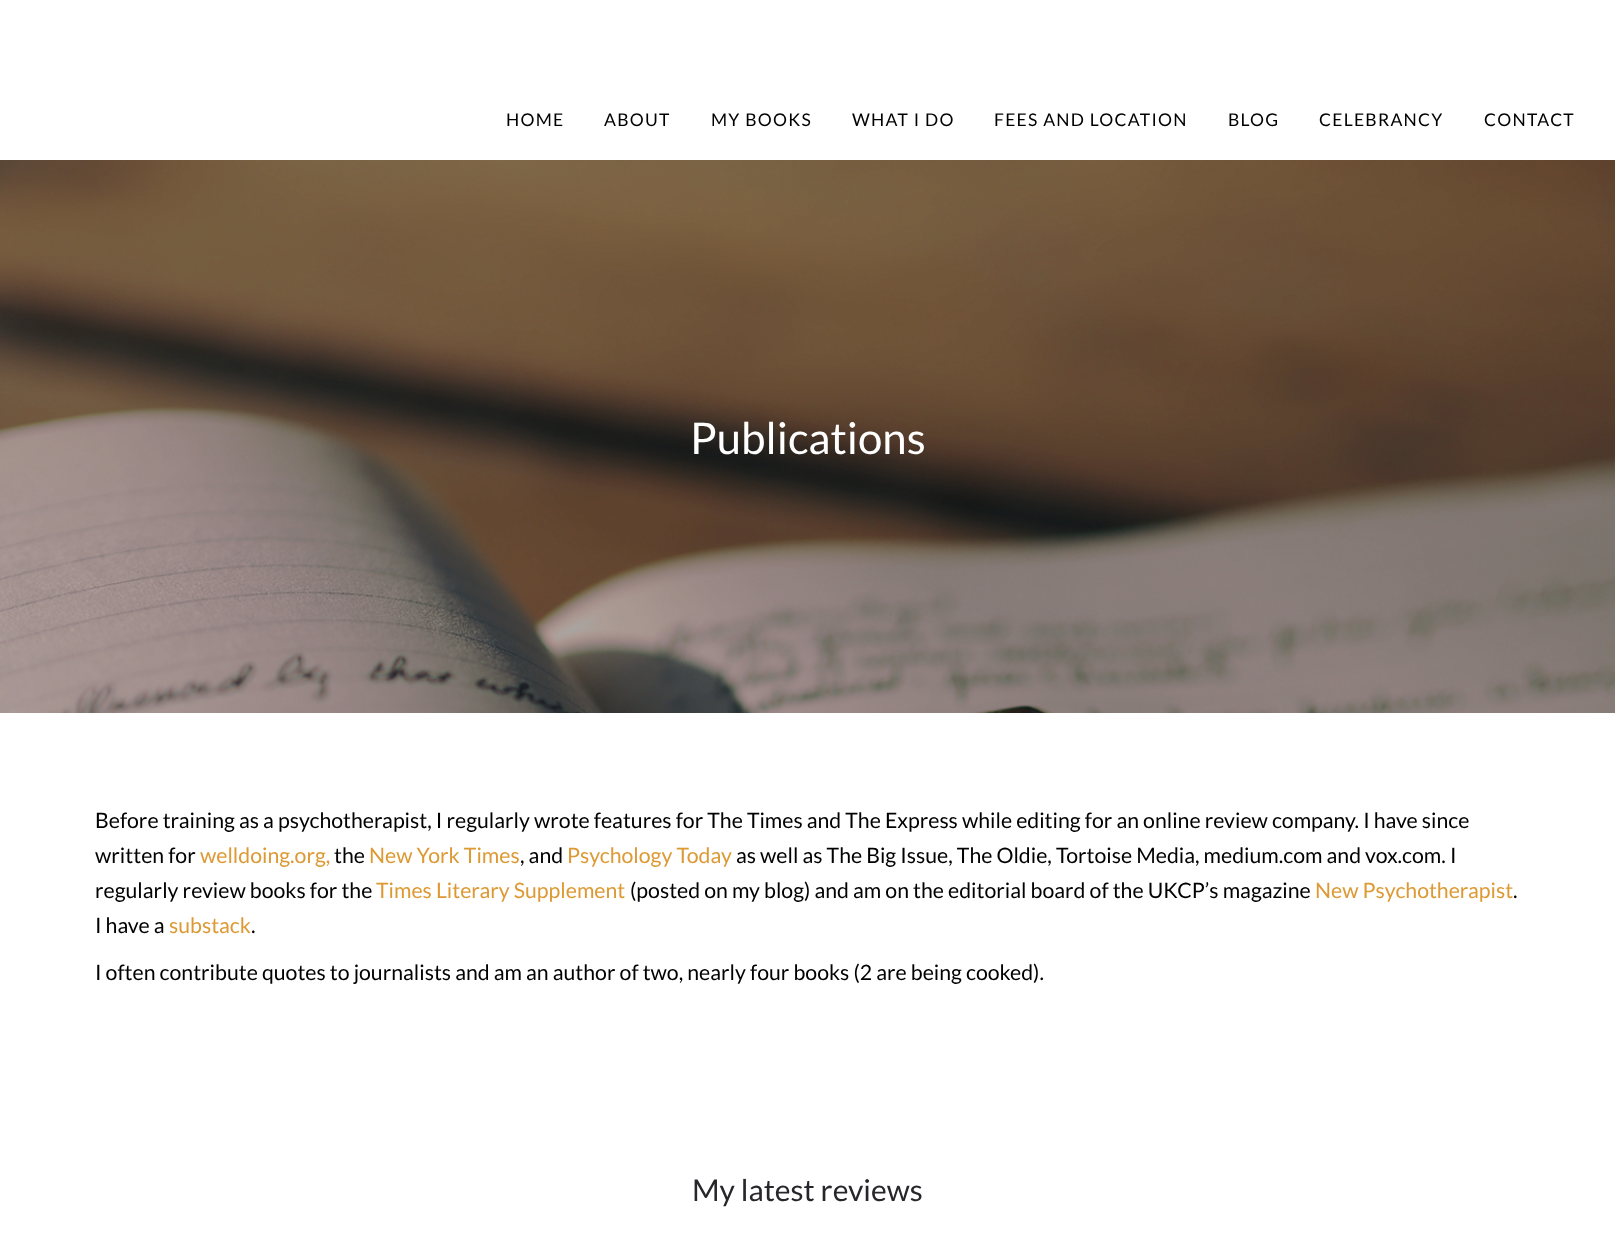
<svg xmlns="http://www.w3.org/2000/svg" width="1615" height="1240">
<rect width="100%" height="100%" fill="#fff"/>
<text x="506" y="126" style="font-family:Lato;font-size:17.5px;letter-spacing:1.25px;fill:#000">HOME</text>
<text x="604" y="126" style="font-family:Lato;font-size:17.5px;letter-spacing:1.25px;fill:#000">ABOUT</text>
<text x="711" y="126" style="font-family:Lato;font-size:17.5px;letter-spacing:1.25px;fill:#000">MY BOOKS</text>
<text x="852" y="126" style="font-family:Lato;font-size:17.5px;letter-spacing:1.25px;fill:#000">WHAT I DO</text>
<text x="994" y="126" style="font-family:Lato;font-size:17.5px;letter-spacing:1.25px;fill:#000">FEES AND LOCATION</text>
<text x="1228" y="126" style="font-family:Lato;font-size:17.5px;letter-spacing:1.25px;fill:#000">BLOG</text>
<text x="1319" y="126" style="font-family:Lato;font-size:17.5px;letter-spacing:1.25px;fill:#000">CELEBRANCY</text>
<text x="1484" y="126" style="font-family:Lato;font-size:17.5px;letter-spacing:1.25px;fill:#000">CONTACT</text>
<image x="0" y="160" width="1615" height="553" href="media/1.png"/>
<text x="690" y="454" style="font-family:Lato;font-size:43.75px;fill:#fff">Publications</text>
<text x="95" y="828" style="font-family:Lato;font-size:21.25px;fill:#000">Before training as a psychotherapist, I regularly wrote features for The Times and The Express while editing for an online review company. I have since</text>
<text x="95" y="863" style="font-family:Lato;font-size:21.25px;fill:#000">written for</text>
<text x="200" y="863" style="font-family:Lato;font-size:21.25px;fill:#d93">welldoing.org,</text>
<text x="334" y="863" style="font-family:Lato;font-size:21.25px;fill:#000">the</text>
<text x="369" y="863" style="font-family:Lato;font-size:21.25px;fill:#d93">New York Times</text>
<text x="520" y="863" style="font-family:Lato;font-size:21.25px;fill:#000">, and</text>
<text x="567" y="863" style="font-family:Lato;font-size:21.25px;fill:#d93">Psychology Today</text>
<text x="736" y="863" style="font-family:Lato;font-size:21.25px;fill:#000">as well as The Big Issue, The Oldie, Tortoise Media, medium.com and vox.com. I</text>
<text x="95" y="898" style="font-family:Lato;font-size:21.25px;fill:#000">regularly review books for the</text>
<text x="376" y="898" style="font-family:Lato;font-size:21.25px;fill:#d93">Times Literary Supplement</text>
<text x="630" y="898" style="font-family:Lato;font-size:21.25px;fill:#000">(posted on my blog) and am on the editorial board of the UKCP’s magazine</text>
<text x="1315" y="898" style="font-family:Lato;font-size:21.25px;fill:#d93">New Psychotherapist</text>
<text x="1513" y="898" style="font-family:Lato;font-size:21.25px;fill:#000">.</text>
<text x="95" y="933" style="font-family:Lato;font-size:21.25px;fill:#000">I have a</text>
<text x="169" y="933" style="font-family:Lato;font-size:21.25px;fill:#d93">substack</text>
<text x="251" y="933" style="font-family:Lato;font-size:21.25px;fill:#000">.</text>
<text x="95" y="980" style="font-family:Lato;font-size:21.25px;fill:#000">I often contribute quotes to journalists and am an author of two, nearly four books (2 are being cooked).</text>
<text x="692" y="1201" style="font-family:Lato;font-size:30px;fill:#28262b">My latest reviews</text>
</svg>
